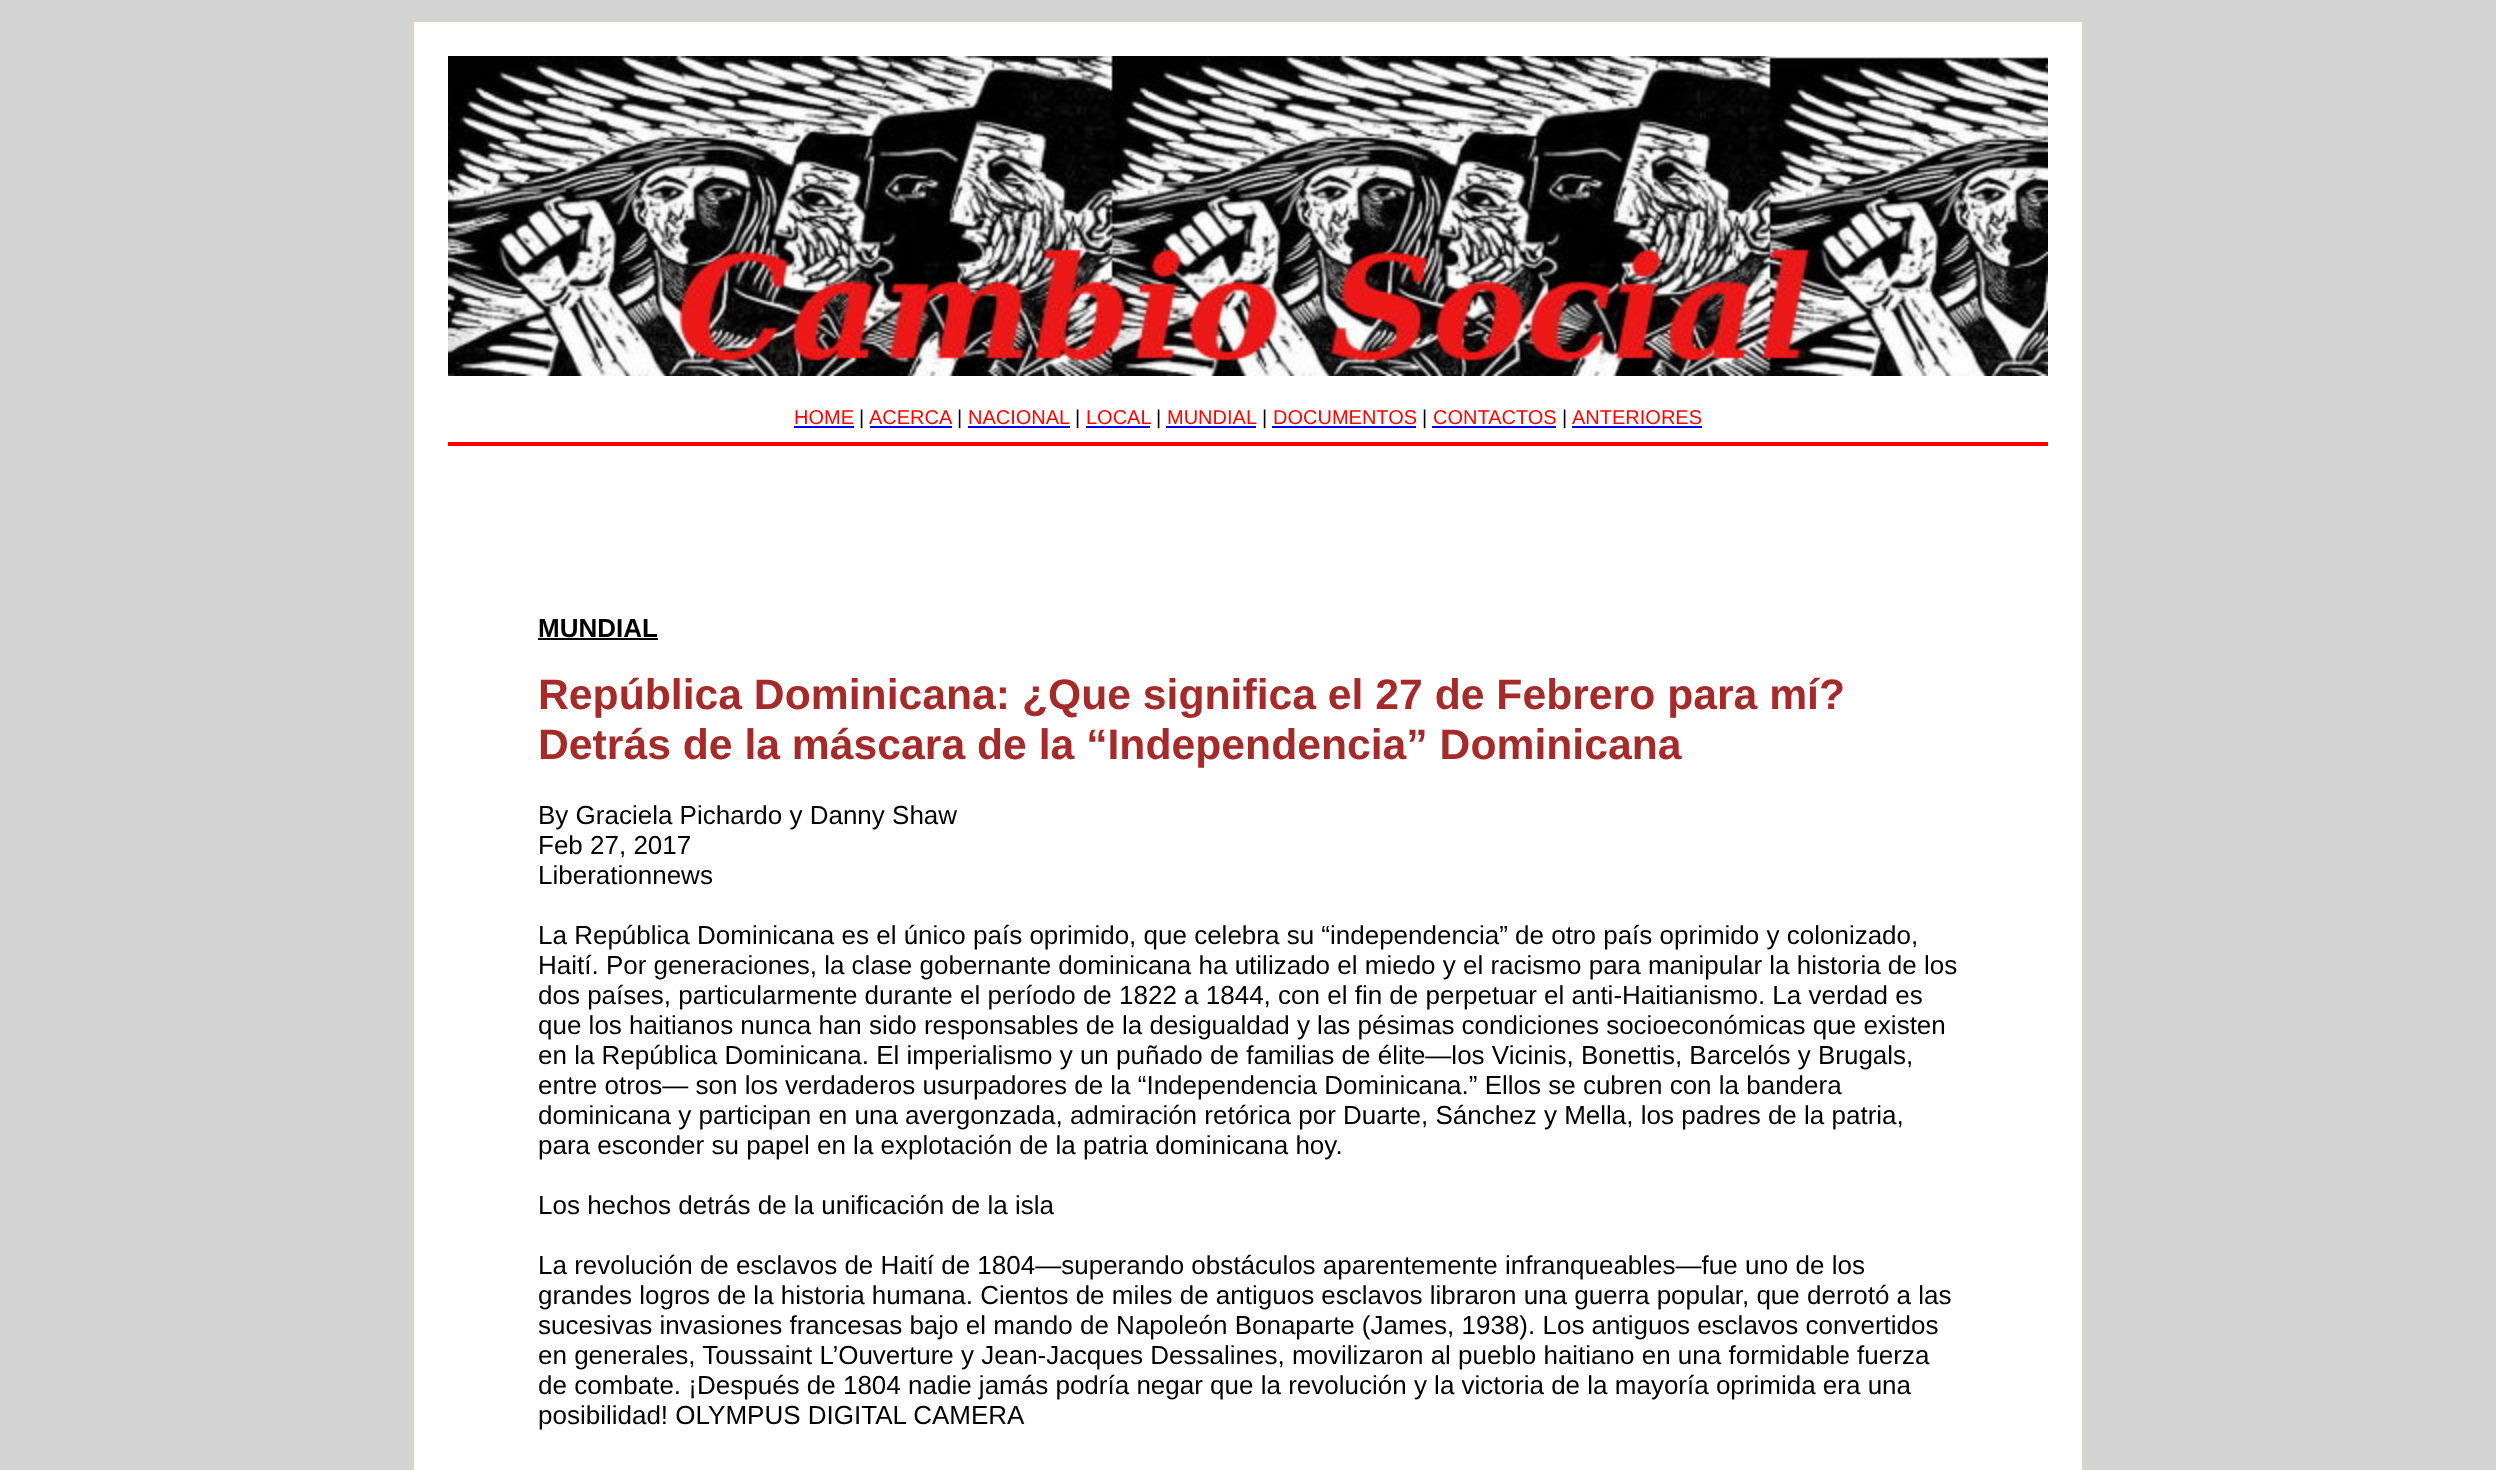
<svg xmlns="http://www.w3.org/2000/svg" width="2496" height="1470">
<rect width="100%" height="100%" fill="#d3d3d3"/>
<rect x="413" y="21" width="1670" height="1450" fill="#fff" stroke="#d9d5be" stroke-width="2"/>
<image x="448" y="56" width="1600" height="320" href="media/1.png"/>
<text x="794" y="424" style="font-family:Liberation Sans;font-size:20px;fill:#f00">HOME</text>
<rect x="794" y="426" width="60" height="2" fill="#00e"/>
<text x="859" y="424" style="font-family:Liberation Sans;font-size:20px;fill:#000">|</text>
<text x="869" y="424" style="font-family:Liberation Sans;font-size:20px;fill:#f00">ACERCA</text>
<rect x="870" y="426" width="82" height="2" fill="#00e"/>
<text x="957" y="424" style="font-family:Liberation Sans;font-size:20px;fill:#000">|</text>
<text x="968" y="424" style="font-family:Liberation Sans;font-size:20px;fill:#f00">NACIONAL</text>
<rect x="968" y="426" width="102" height="2" fill="#00e"/>
<text x="1075" y="424" style="font-family:Liberation Sans;font-size:20px;fill:#000">|</text>
<text x="1086" y="424" style="font-family:Liberation Sans;font-size:20px;fill:#f00">LOCAL</text>
<rect x="1086" y="426" width="64" height="2" fill="#00e"/>
<text x="1156" y="424" style="font-family:Liberation Sans;font-size:20px;fill:#000">|</text>
<text x="1167" y="424" style="font-family:Liberation Sans;font-size:20px;fill:#f00">MUNDIAL</text>
<rect x="1166" y="426" width="90" height="2" fill="#00e"/>
<text x="1262" y="424" style="font-family:Liberation Sans;font-size:20px;fill:#000">|</text>
<text x="1273" y="424" style="font-family:Liberation Sans;font-size:20px;fill:#f00">DOCUMENTOS</text>
<rect x="1272" y="426" width="144" height="2" fill="#00e"/>
<text x="1422" y="424" style="font-family:Liberation Sans;font-size:20px;fill:#000">|</text>
<text x="1433" y="424" style="font-family:Liberation Sans;font-size:20px;fill:#f00">CONTACTOS</text>
<rect x="1432" y="426" width="124" height="2" fill="#00e"/>
<text x="1562" y="424" style="font-family:Liberation Sans;font-size:20px;fill:#000">|</text>
<text x="1572" y="424" style="font-family:Liberation Sans;font-size:20px;fill:#f00">ANTERIORES</text>
<rect x="1572" y="426" width="130" height="2" fill="#00e"/>
<rect x="448" y="442" width="1600" height="4" fill="#f00"/>
<text x="538" y="637" style="font-family:Liberation Sans;font-size:26px;font-weight:bold;fill:#000">MUNDIAL</text>
<rect x="538" y="638" width="120" height="2" fill="#000"/>
<text x="538" y="709" style="font-family:Liberation Sans;font-size:42.7px;font-weight:bold;fill:#a52a2a">República Dominicana: ¿Que significa el 27 de Febrero para mí?</text>
<text x="538" y="759" style="font-family:Liberation Sans;font-size:42.7px;font-weight:bold;fill:#a52a2a">Detrás de la máscara de la “Independencia” Dominicana</text>
<text x="538" y="824" style="font-family:Liberation Sans;font-size:26px;fill:#000">By Graciela Pichardo y Danny Shaw</text>
<text x="538" y="854" style="font-family:Liberation Sans;font-size:26px;fill:#000">Feb 27, 2017</text>
<text x="538" y="884" style="font-family:Liberation Sans;font-size:26px;fill:#000">Liberationnews</text>
<text x="538" y="944" style="font-family:Liberation Sans;font-size:26px;fill:#000">La República Dominicana es el único país oprimido, que celebra su “independencia” de otro país oprimido y colonizado,</text>
<text x="538" y="974" style="font-family:Liberation Sans;font-size:26px;fill:#000">Haití. Por generaciones, la clase gobernante dominicana ha utilizado el miedo y el racismo para manipular la historia de los</text>
<text x="538" y="1004" style="font-family:Liberation Sans;font-size:26px;fill:#000">dos países, particularmente durante el período de 1822 a 1844, con el fin de perpetuar el anti-Haitianismo. La verdad es</text>
<text x="538" y="1034" style="font-family:Liberation Sans;font-size:26px;fill:#000">que los haitianos nunca han sido responsables de la desigualdad y las pésimas condiciones socioeconómicas que existen</text>
<text x="538" y="1064" style="font-family:Liberation Sans;font-size:26px;fill:#000">en la República Dominicana. El imperialismo y un puñado de familias de élite—los Vicinis, Bonettis, Barcelós y Brugals,</text>
<text x="538" y="1094" style="font-family:Liberation Sans;font-size:26px;fill:#000">entre otros— son los verdaderos usurpadores de la “Independencia Dominicana.” Ellos se cubren con la bandera</text>
<text x="538" y="1124" style="font-family:Liberation Sans;font-size:26px;fill:#000">dominicana y participan en una avergonzada, admiración retórica por Duarte, Sánchez y Mella, los padres de la patria,</text>
<text x="538" y="1154" style="font-family:Liberation Sans;font-size:26px;fill:#000">para esconder su papel en la explotación de la patria dominicana hoy.</text>
<text x="538" y="1214" style="font-family:Liberation Sans;font-size:26px;fill:#000">Los hechos detrás de la unificación de la isla</text>
<text x="538" y="1274" style="font-family:Liberation Sans;font-size:26px;fill:#000">La revolución de esclavos de Haití de 1804—superando obstáculos aparentemente infranqueables—fue uno de los</text>
<text x="538" y="1304" style="font-family:Liberation Sans;font-size:26px;fill:#000">grandes logros de la historia humana. Cientos de miles de antiguos esclavos libraron una guerra popular, que derrotó a las</text>
<text x="538" y="1334" style="font-family:Liberation Sans;font-size:26px;fill:#000">sucesivas invasiones francesas bajo el mando de Napoleón Bonaparte (James, 1938). Los antiguos esclavos convertidos</text>
<text x="538" y="1364" style="font-family:Liberation Sans;font-size:26px;fill:#000">en generales, Toussaint L’Ouverture y Jean-Jacques Dessalines, movilizaron al pueblo haitiano en una formidable fuerza</text>
<text x="538" y="1394" style="font-family:Liberation Sans;font-size:26px;fill:#000">de combate. ¡Después de 1804 nadie jamás podría negar que la revolución y la victoria de la mayoría oprimida era una</text>
<text x="538" y="1424" style="font-family:Liberation Sans;font-size:26px;fill:#000">posibilidad! OLYMPUS DIGITAL CAMERA</text>
</svg>
